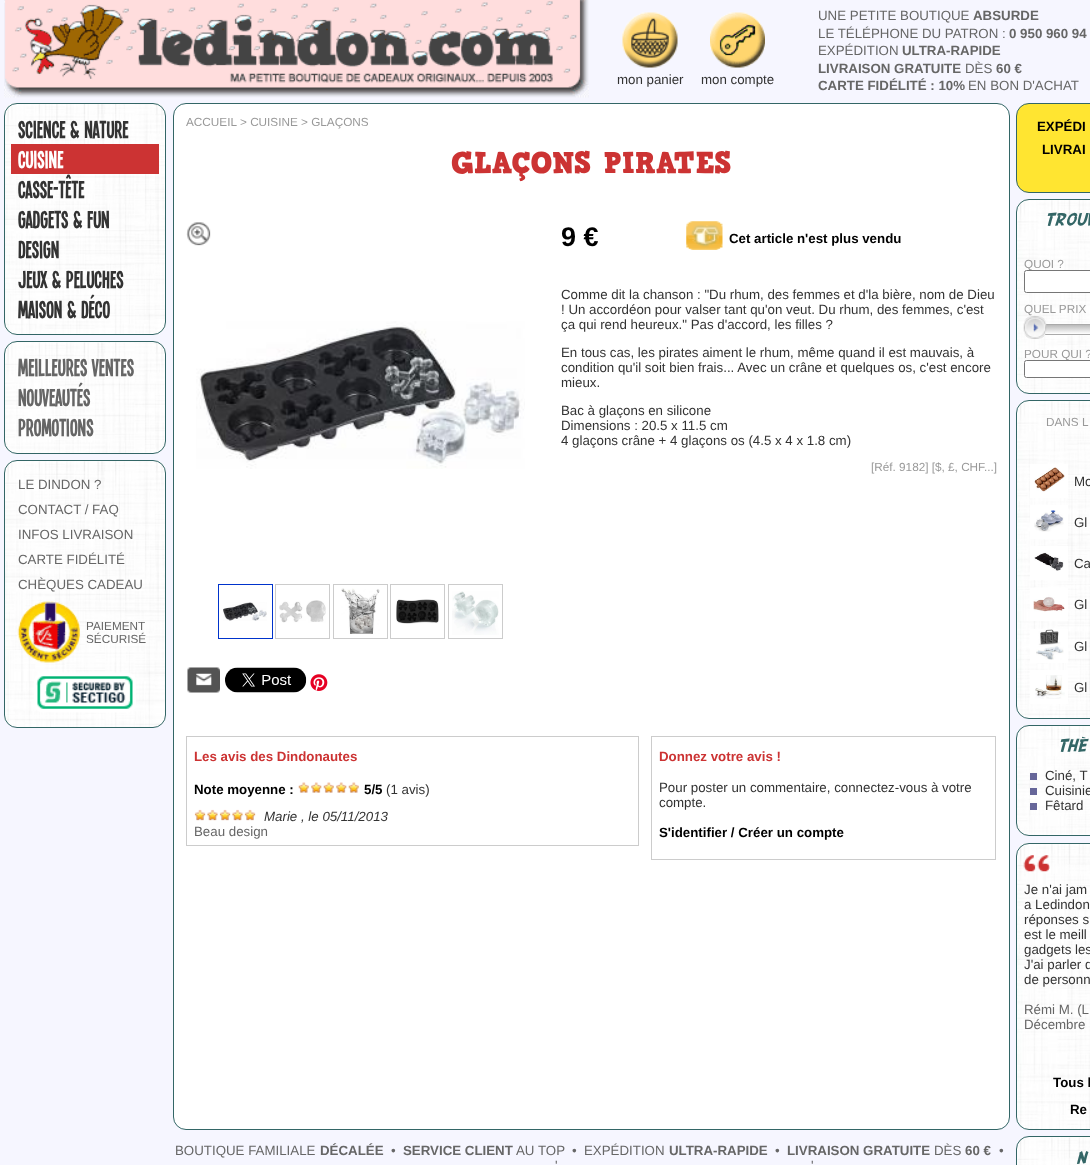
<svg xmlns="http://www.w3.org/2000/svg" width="1090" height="1165">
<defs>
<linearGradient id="g1" gradientUnits="userSpaceOnUse" x1="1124" y1="325" x2="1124" y2="334"><stop offset="0" stop-color="#bababa"/><stop offset="1" stop-color="#fff"/></linearGradient>
</defs>
<rect width="100%" height="100%" fill="#f6f6ff"/>
<image x="4" y="0" width="585" height="98" href="media/1.png"/>
<image x="622" y="12" width="56" height="56" href="media/2.png"/>
<text x="617" y="84" style="font-family:Liberation Sans;font-size:13.3px;fill:#333">mon panier</text>
<image x="710" y="12" width="55" height="56" href="media/3.png"/>
<text x="701" y="84" style="font-family:Liberation Sans;font-size:13.3px;fill:#333">mon compte</text>
<text x="818" y="20" style="font-family:Liberation Sans;font-size:13.3px;fill:#666">UNE PETITE BOUTIQUE</text>
<text x="973" y="20" style="font-family:Liberation Sans;font-size:13.3px;font-weight:bold;fill:#666">ABSURDE</text>
<text x="818" y="38" style="font-family:Liberation Sans;font-size:13.3px;fill:#666">LE TÉLÉPHONE DU PATRON :</text>
<text x="1009" y="38" style="font-family:Liberation Sans;font-size:13.3px;font-weight:bold;fill:#666">0 950 960 94</text>
<text x="818" y="55" style="font-family:Liberation Sans;font-size:13.3px;fill:#666">EXPÉDITION</text>
<text x="902" y="55" style="font-family:Liberation Sans;font-size:13.3px;font-weight:bold;fill:#666">ULTRA-RAPIDE</text>
<text x="818" y="73" style="font-family:Liberation Sans;font-size:13.3px;font-weight:bold;fill:#666">LIVRAISON GRATUITE</text>
<text x="965" y="73" style="font-family:Liberation Sans;font-size:13.3px;fill:#666">DÈS</text>
<text x="996" y="73" style="font-family:Liberation Sans;font-size:13.3px;font-weight:bold;fill:#666">60 €</text>
<text x="818" y="90" style="font-family:Liberation Sans;font-size:13.3px;font-weight:bold;fill:#666">CARTE FIDÉLITÉ : 10%</text>
<text x="968" y="90" style="font-family:Liberation Sans;font-size:13.3px;fill:#666">EN BON D'ACHAT</text>
<image x="4" y="103" width="162" height="232" href="media/4.png"/>
<rect x="4.5" y="103.5" width="161" height="231" rx="12.5" fill="none" stroke="#366"/>
<text x="18" y="138" style="font-family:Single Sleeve;font-size:13.3px;fill:#333">SCIENCE &amp; NATURE</text>
<rect x="11" y="144" width="148" height="30" fill="#c33"/>
<text x="18" y="168" style="font-family:Single Sleeve;font-size:13.3px;fill:#fff">CUISINE</text>
<text x="18" y="198" style="font-family:Single Sleeve;font-size:13.3px;fill:#333">CASSE-TÊTE</text>
<text x="18" y="228" style="font-family:Single Sleeve;font-size:13.3px;fill:#333">GADGETS &amp; FUN</text>
<text x="18" y="258" style="font-family:Single Sleeve;font-size:13.3px;fill:#333">DESIGN</text>
<text x="18" y="288" style="font-family:Single Sleeve;font-size:13.3px;fill:#333">JEUX &amp; PELUCHES</text>
<text x="18" y="318" style="font-family:Single Sleeve;font-size:13.3px;fill:#333">MAISON &amp; DÉCO</text>
<image x="4" y="341" width="162" height="113" href="media/5.png"/>
<rect x="4.5" y="341.5" width="161" height="112" rx="12.5" fill="none" stroke="#366"/>
<text x="18" y="376" style="font-family:Single Sleeve;font-size:13.3px;fill:#666">MEILLEURES VENTES</text>
<text x="18" y="406" style="font-family:Single Sleeve;font-size:13.3px;fill:#666">NOUVEAUTÉS</text>
<text x="18" y="436" style="font-family:Single Sleeve;font-size:13.3px;fill:#666">PROMOTIONS</text>
<image x="4" y="460" width="162" height="267" href="media/6.png"/>
<rect x="4.5" y="460.5" width="161" height="267" rx="12.5" fill="none" stroke="#366"/>
<text x="18" y="489" style="font-family:Liberation Sans;font-size:13.3px;fill:#666">LE DINDON ?</text>
<text x="18" y="514" style="font-family:Liberation Sans;font-size:13.3px;fill:#666">CONTACT / FAQ</text>
<text x="18" y="539" style="font-family:Liberation Sans;font-size:13.3px;fill:#666">INFOS LIVRAISON</text>
<text x="18" y="564" style="font-family:Liberation Sans;font-size:13.3px;fill:#666">CARTE FIDÉLITÉ</text>
<text x="18" y="589" style="font-family:Liberation Sans;font-size:13.3px;fill:#666">CHÈQUES CADEAU</text>
<image x="17" y="601" width="63" height="62" href="media/7.png"/>
<text x="86" y="630" style="font-family:Liberation Sans;font-size:11.75px;fill:#666">PAIEMENT</text>
<text x="86" y="643" style="font-family:Liberation Sans;font-size:11.75px;fill:#666">SÉCURISÉ</text>
<image x="34" y="672" width="102" height="41" href="media/8.png"/>
<rect x="173.5" y="103.5" width="836" height="1026" rx="12.5" fill="#fff" stroke="#366"/>
<text x="186" y="126" style="font-family:Liberation Sans;font-size:11.75px;fill:#999">ACCUEIL</text>
<text x="240" y="126" style="font-family:Liberation Sans;font-size:11.75px;fill:#999">&gt; CUISINE &gt; GLAÇONS</text>
<text x="451" y="173" style="font-family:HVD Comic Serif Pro;font-size:30px;fill:#c33">GLAÇONS PIRATES</text>
<image x="186" y="222" width="25" height="24" href="media/9.png"/>
<image x="196" y="321" width="329" height="148" href="media/10.png"/>
<rect x="218.5" y="584.5" width="54" height="54" fill="none" stroke="#03c"/>
<image x="223" y="602" width="44" height="19" href="media/11.png"/>
<rect x="275.5" y="584.5" width="54" height="54" fill="none" stroke="#ccc"/>
<image x="279" y="600" width="47" height="23" href="media/12.png"/>
<rect x="333.5" y="584.5" width="54" height="54" fill="none" stroke="#ccc"/>
<image x="341" y="588" width="39" height="46" href="media/13.png"/>
<rect x="390.5" y="584.5" width="54" height="54" fill="none" stroke="#ccc"/>
<image x="396" y="599" width="43" height="25" href="media/14.png"/>
<rect x="448.5" y="584.5" width="54" height="54" fill="none" stroke="#ccc"/>
<image x="452" y="591" width="47" height="44" href="media/15.png"/>
<image x="187" y="667" width="33" height="26" href="media/16.png"/>
<image x="225" y="667" width="82" height="26" href="media/17.png"/>
<image x="310" y="674" width="18" height="17" href="media/18.png"/>
<text x="561" y="246" style="font-family:Liberation Sans;font-size:27px;font-weight:bold;fill:#000">9 €</text>
<image x="686" y="221" width="37" height="29" href="media/19.png"/>
<text x="729" y="243" style="font-family:Liberation Sans;font-size:13.3px;font-weight:bold;fill:#000">Cet article n'est plus vendu</text>
<text x="561" y="299" style="font-family:Liberation Sans;font-size:13.3px;fill:#333">Comme dit la chanson : "Du rhum, des femmes et d'la bière, nom de Dieu</text>
<text x="561" y="314" style="font-family:Liberation Sans;font-size:13.3px;fill:#333">! Un accordéon pour valser tant qu'on veut. Du rhum, des femmes, c'est</text>
<text x="561" y="329" style="font-family:Liberation Sans;font-size:13.3px;fill:#333">ça qui rend heureux." Pas d'accord, les filles ?</text>
<text x="561" y="357" style="font-family:Liberation Sans;font-size:13.3px;fill:#333">En tous cas, les pirates aiment le rhum, même quand il est mauvais, à</text>
<text x="561" y="372" style="font-family:Liberation Sans;font-size:13.3px;fill:#333">condition qu'il soit bien frais... Avec un crâne et quelques os, c'est encore</text>
<text x="561" y="387" style="font-family:Liberation Sans;font-size:13.3px;fill:#333">mieux.</text>
<text x="561" y="415" style="font-family:Liberation Sans;font-size:13.3px;fill:#333">Bac à glaçons en silicone</text>
<text x="561" y="430" style="font-family:Liberation Sans;font-size:13.3px;fill:#333">Dimensions : 20.5 x 11.5 cm</text>
<text x="561" y="445" style="font-family:Liberation Sans;font-size:13.3px;fill:#333">4 glaçons crâne + 4 glaçons os (4.5 x 4 x 1.8 cm)</text>
<text x="871" y="471" style="font-family:Liberation Sans;font-size:11.75px;fill:#999">[Réf. 9182] [$, £, CHF...]</text>
<rect x="186.5" y="736.5" width="452" height="109" fill="none" stroke="#ccc"/>
<text x="194" y="761" style="font-family:Liberation Sans;font-size:13.3px;font-weight:bold;fill:#c33">Les avis des Dindonautes</text>
<text x="194" y="794" style="font-family:Liberation Sans;font-size:13.3px;font-weight:bold;fill:#000">Note moyenne :</text>
<image x="298" y="782" width="61" height="11" href="media/20.png"/>
<text x="364" y="794" style="font-family:Liberation Sans;font-size:13.3px;font-weight:bold;fill:#000">5/5</text>
<text x="386" y="794" style="font-family:Liberation Sans;font-size:13.3px;fill:#333">(1 avis)</text>
<image x="194" y="809" width="62" height="12" href="media/21.png"/>
<text x="264" y="821" style="font-family:Liberation Sans;font-size:13.3px;font-style:italic;fill:#333">Marie , le 05/11/2013</text>
<text x="194" y="836" style="font-family:Liberation Sans;font-size:13.3px;fill:#666">Beau design</text>
<rect x="651.5" y="736.5" width="344" height="123" fill="none" stroke="#ccc"/>
<text x="659" y="761" style="font-family:Liberation Sans;font-size:13.3px;font-weight:bold;fill:#c33">Donnez votre avis !</text>
<text x="659" y="792" style="font-family:Liberation Sans;font-size:13.3px;fill:#333">Pour poster un commentaire, connectez-vous à votre</text>
<text x="659" y="807" style="font-family:Liberation Sans;font-size:13.3px;fill:#333">compte.</text>
<text x="659" y="837" style="font-family:Liberation Sans;font-size:13.3px;font-weight:bold;fill:#000">S'identifier / Créer un compte</text>
<text x="175" y="1155" style="font-family:Liberation Sans;font-size:13.3px;fill:#666">BOUTIQUE FAMILIALE</text>
<text x="320" y="1155" style="font-family:Liberation Sans;font-size:13.3px;font-weight:bold;fill:#666">DÉCALÉE</text>
<text x="391" y="1155" style="font-family:Liberation Sans;font-size:13.3px;fill:#666">•</text>
<text x="403" y="1155" style="font-family:Liberation Sans;font-size:13.3px;font-weight:bold;fill:#666">SERVICE CLIENT</text>
<text x="516" y="1155" style="font-family:Liberation Sans;font-size:13.3px;fill:#666">AU TOP</text>
<text x="572" y="1155" style="font-family:Liberation Sans;font-size:13.3px;fill:#666">•</text>
<text x="584" y="1155" style="font-family:Liberation Sans;font-size:13.3px;fill:#666">EXPÉDITION</text>
<text x="669" y="1155" style="font-family:Liberation Sans;font-size:13.3px;font-weight:bold;fill:#666">ULTRA-RAPIDE</text>
<text x="775" y="1155" style="font-family:Liberation Sans;font-size:13.3px;fill:#666">•</text>
<text x="787" y="1155" style="font-family:Liberation Sans;font-size:13.3px;font-weight:bold;fill:#666">LIVRAISON GRATUITE</text>
<text x="934" y="1155" style="font-family:Liberation Sans;font-size:13.3px;fill:#666">DÈS</text>
<text x="965" y="1155" style="font-family:Liberation Sans;font-size:13.3px;font-weight:bold;fill:#666">60 €</text>
<text x="999" y="1155" style="font-family:Liberation Sans;font-size:13.3px;fill:#666">•</text>
<text x="555" y="1170" style="font-family:Liberation Sans;font-size:13.3px;fill:#666">'</text>
<text x="811" y="1170" style="font-family:Liberation Sans;font-size:13.3px;fill:#666">'</text>
<rect x="1016.5" y="103.5" width="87" height="89" rx="12.5" fill="#ffe531" stroke="#366"/>
<text x="1037" y="131" style="font-family:Liberation Sans;font-size:13.3px;font-weight:bold;fill:#000">EXPÉDI</text>
<text x="1042" y="154" style="font-family:Liberation Sans;font-size:13.3px;font-weight:bold;fill:#000">LIVRAI</text>
<image x="1016" y="199" width="74" height="195" href="media/22.png"/>
<rect x="1016.5" y="199.5" width="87" height="194" rx="12.5" fill="none" stroke="#366"/>
<text x="1045" y="225" style="font-family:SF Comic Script;font-size:17px;fill:#366">TROUV</text>
<text x="1024" y="268" style="font-family:Liberation Sans;font-size:11.75px;fill:#999">QUOI ?</text>
<rect x="1024.5" y="270.5" width="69" height="22" rx="2" fill="#fff" stroke="#767676"/>
<text x="1024" y="313" style="font-family:Liberation Sans;font-size:11.75px;fill:#999">QUEL PRIX</text>
<rect x="1036.5" y="324.5" width="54" height="10" fill="none" stroke="#aaa"/>
<rect x="1045" y="325" width="45" height="9" fill="url(#g1)"/>
<rect x="1024" y="316" width="22" height="23" rx="8" fill="#e6e6e6"/>
<image x="1023" y="316" width="24" height="23" href="media/23.png"/>
<text x="1024" y="358" style="font-family:Liberation Sans;font-size:11.75px;fill:#999">POUR QUI ?</text>
<rect x="1024.5" y="360.5" width="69" height="17" rx="2" fill="#fff" stroke="#767676"/>
<image x="1016" y="400" width="74" height="318" href="media/24.png"/>
<rect x="1016.5" y="400.5" width="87" height="318" rx="12.5" fill="none" stroke="#366"/>
<text x="1046" y="426" style="font-family:Liberation Sans;font-size:11.75px;fill:#999">DANS L</text>
<rect x="1030" y="464" width="38" height="34" fill="#fff"/>
<image x="1034" y="467" width="31" height="25" href="media/25.png"/>
<text x="1074" y="486" style="font-family:Liberation Sans;font-size:13.3px;fill:#333">Mo</text>
<rect x="1030" y="505" width="38" height="34" fill="#fff"/>
<image x="1034" y="510" width="30" height="22" href="media/26.png"/>
<text x="1074" y="527" style="font-family:Liberation Sans;font-size:13.3px;fill:#333">Gl</text>
<rect x="1030" y="546" width="38" height="34" fill="#fff"/>
<image x="1034" y="552" width="30" height="19" href="media/27.png"/>
<text x="1074" y="568" style="font-family:Liberation Sans;font-size:13.3px;fill:#333">Ca</text>
<rect x="1030" y="588" width="38" height="33" fill="#fff"/>
<image x="1033" y="587" width="32" height="25" href="media/28.png"/>
<text x="1074" y="609" style="font-family:Liberation Sans;font-size:13.3px;fill:#333">Gl</text>
<rect x="1030" y="629" width="38" height="34" fill="#fff"/>
<image x="1036" y="629" width="28" height="31" href="media/29.png"/>
<text x="1074" y="651" style="font-family:Liberation Sans;font-size:13.3px;fill:#333">Gl</text>
<rect x="1030" y="670" width="38" height="34" fill="#fff"/>
<image x="1035" y="675" width="30" height="24" href="media/30.png"/>
<text x="1074" y="692" style="font-family:Liberation Sans;font-size:13.3px;fill:#333">Gl</text>
<image x="1016" y="725" width="74" height="111" href="media/31.png"/>
<rect x="1016.5" y="725.5" width="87" height="110" rx="12.5" fill="none" stroke="#366"/>
<text x="1058" y="751" style="font-family:SF Comic Script;font-size:17px;fill:#366">THÈ</text>
<rect x="1030" y="773" width="7" height="7" fill="#669"/>
<text x="1045" y="780" style="font-family:Liberation Sans;font-size:13.3px;fill:#333">Ciné, T</text>
<rect x="1030" y="788" width="7" height="7" fill="#669"/>
<text x="1045" y="795" style="font-family:Liberation Sans;font-size:13.3px;fill:#333">Cuisinie</text>
<rect x="1030" y="803" width="7" height="7" fill="#669"/>
<text x="1045" y="810" style="font-family:Liberation Sans;font-size:13.3px;fill:#333">Fêtard</text>
<image x="1016" y="843" width="74" height="287" href="media/32.png"/>
<rect x="1016.5" y="843.5" width="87" height="286" rx="12.5" fill="none" stroke="#366"/>
<image x="1023" y="855" width="27" height="17" href="media/33.png"/>
<text x="1024" y="894" style="font-family:Liberation Sans;font-size:13.3px;fill:#333">Je n'ai jam</text>
<text x="1024" y="909" style="font-family:Liberation Sans;font-size:13.3px;fill:#333">a Ledindon</text>
<text x="1024" y="924" style="font-family:Liberation Sans;font-size:13.3px;fill:#333">réponses s</text>
<text x="1024" y="939" style="font-family:Liberation Sans;font-size:13.3px;fill:#333">est le meill</text>
<text x="1024" y="954" style="font-family:Liberation Sans;font-size:13.3px;fill:#333">gadgets les</text>
<text x="1024" y="969" style="font-family:Liberation Sans;font-size:13.3px;fill:#333">J'ai parler d</text>
<text x="1024" y="984" style="font-family:Liberation Sans;font-size:13.3px;fill:#333">de personn</text>
<text x="1024" y="1014" style="font-family:Liberation Sans;font-size:13.3px;fill:#666">Rémi M. (L</text>
<text x="1024" y="1029" style="font-family:Liberation Sans;font-size:13.3px;fill:#666">Décembre</text>
<text x="1053" y="1087" style="font-family:Liberation Sans;font-size:13.3px;font-weight:bold;fill:#000">Tous l</text>
<text x="1070" y="1114" style="font-family:Liberation Sans;font-size:13.3px;font-weight:bold;fill:#000">Re</text>
<image x="1017" y="1137" width="73" height="28" href="media/34.png"/>
<rect x="1016.5" y="1136.5" width="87" height="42" rx="12.5" fill="none" stroke="#366"/>
<text x="1076" y="1163" style="font-family:SF Comic Script;font-size:17px;fill:#366">N</text>
</svg>
